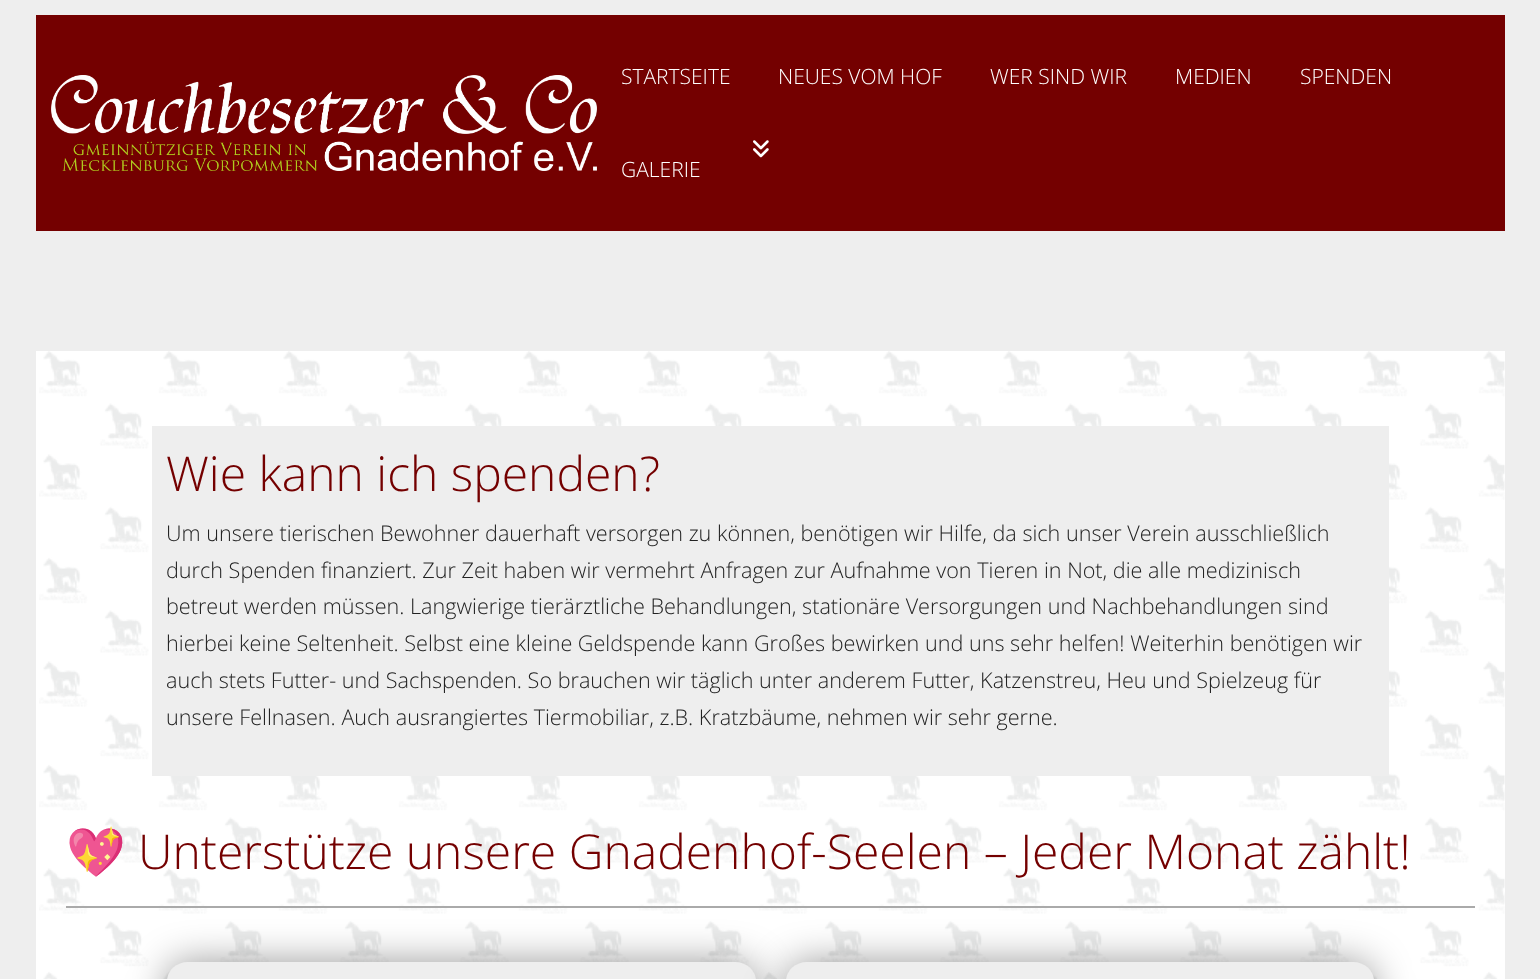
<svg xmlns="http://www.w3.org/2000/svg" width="1540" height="979">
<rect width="100%" height="100%" fill="#eee"/>
<rect x="36" y="15" width="1469" height="216" fill="#740000"/>
<image x="51" y="75" width="546" height="96" href="media/1.png"/>
<text x="621" y="84" style="font-family:Open Sans;font-size:21px;font-weight:300;fill:#fff">STARTSEITE</text>
<text x="778" y="84" style="font-family:Open Sans;font-size:21px;font-weight:300;fill:#fff">NEUES VOM HOF</text>
<text x="990" y="84" style="font-family:Open Sans;font-size:21px;font-weight:300;fill:#fff">WER SIND WIR</text>
<text x="1175" y="84" style="font-family:Open Sans;font-size:21px;font-weight:300;fill:#fff">MEDIEN</text>
<text x="1300" y="84" style="font-family:Open Sans;font-size:21px;font-weight:300;fill:#fff">SPENDEN</text>
<image x="753" y="140" width="16" height="18" href="media/2.png"/>
<text x="621" y="177" style="font-family:Open Sans;font-size:21px;font-weight:300;fill:#fff">GALERIE</text>
<rect x="36" y="351" width="1469" height="628" fill="#fff"/>
<image x="39" y="351" width="1466" height="628" href="media/3.png"/>
<rect x="152" y="426" width="1237" height="350" fill="#eee"/>
<text x="166" y="491" style="font-family:Open Sans;font-size:48px;font-weight:300;fill:#740000">Wie kann ich spenden?</text>
<text x="166" y="541" style="font-family:Open Sans;font-size:21.6px;font-weight:300;fill:#222">Um unsere tierischen Bewohner dauerhaft versorgen zu können, benötigen wir Hilfe, da sich unser Verein ausschließlich</text>
<text x="166" y="578" style="font-family:Open Sans;font-size:21.6px;font-weight:300;fill:#222">durch Spenden finanziert. Zur Zeit haben wir vermehrt Anfragen zur Aufnahme von Tieren in Not, die alle medizinisch</text>
<text x="166" y="614" style="font-family:Open Sans;font-size:21.6px;font-weight:300;fill:#222">betreut werden müssen. Langwierige tierärztliche Behandlungen, stationäre Versorgungen und Nachbehandlungen sind</text>
<text x="166" y="651" style="font-family:Open Sans;font-size:21.6px;font-weight:300;fill:#222">hierbei keine Seltenheit. Selbst eine kleine Geldspende kann Großes bewirken und uns sehr helfen! Weiterhin benötigen wir</text>
<text x="166" y="688" style="font-family:Open Sans;font-size:21.6px;font-weight:300;fill:#222">auch stets Futter- und Sachspenden. So brauchen wir täglich unter anderem Futter, Katzenstreu, Heu und Spielzeug für</text>
<text x="166" y="725" style="font-family:Open Sans;font-size:21.6px;font-weight:300;fill:#222">unsere Fellnasen. Auch ausrangiertes Tiermobiliar, z.B. Kratzbäume, nehmen wir sehr gerne.</text>
<text x="66" y="869" style="font-family:Noto Color Emoji;font-size:48px;fill:#740000">💖</text>
<text x="138" y="869" style="font-family:Open Sans;font-size:48px;font-weight:300;fill:#740000">Unterstütze unsere Gnadenhof-Seelen – Jeder Monat zählt!</text>
<rect x="66" y="906" width="1409" height="2" fill="#aaa"/>
<rect x="167" y="962" width="589" height="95" rx="21" fill="#00000066" filter="blur(19px)"/>
<rect x="167" y="962" width="589" height="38" rx="21" fill="#eee"/>
<rect x="786" y="962" width="588" height="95" rx="21" fill="#00000066" filter="blur(19px)"/>
<rect x="786" y="962" width="588" height="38" rx="21" fill="#eee"/>
</svg>
